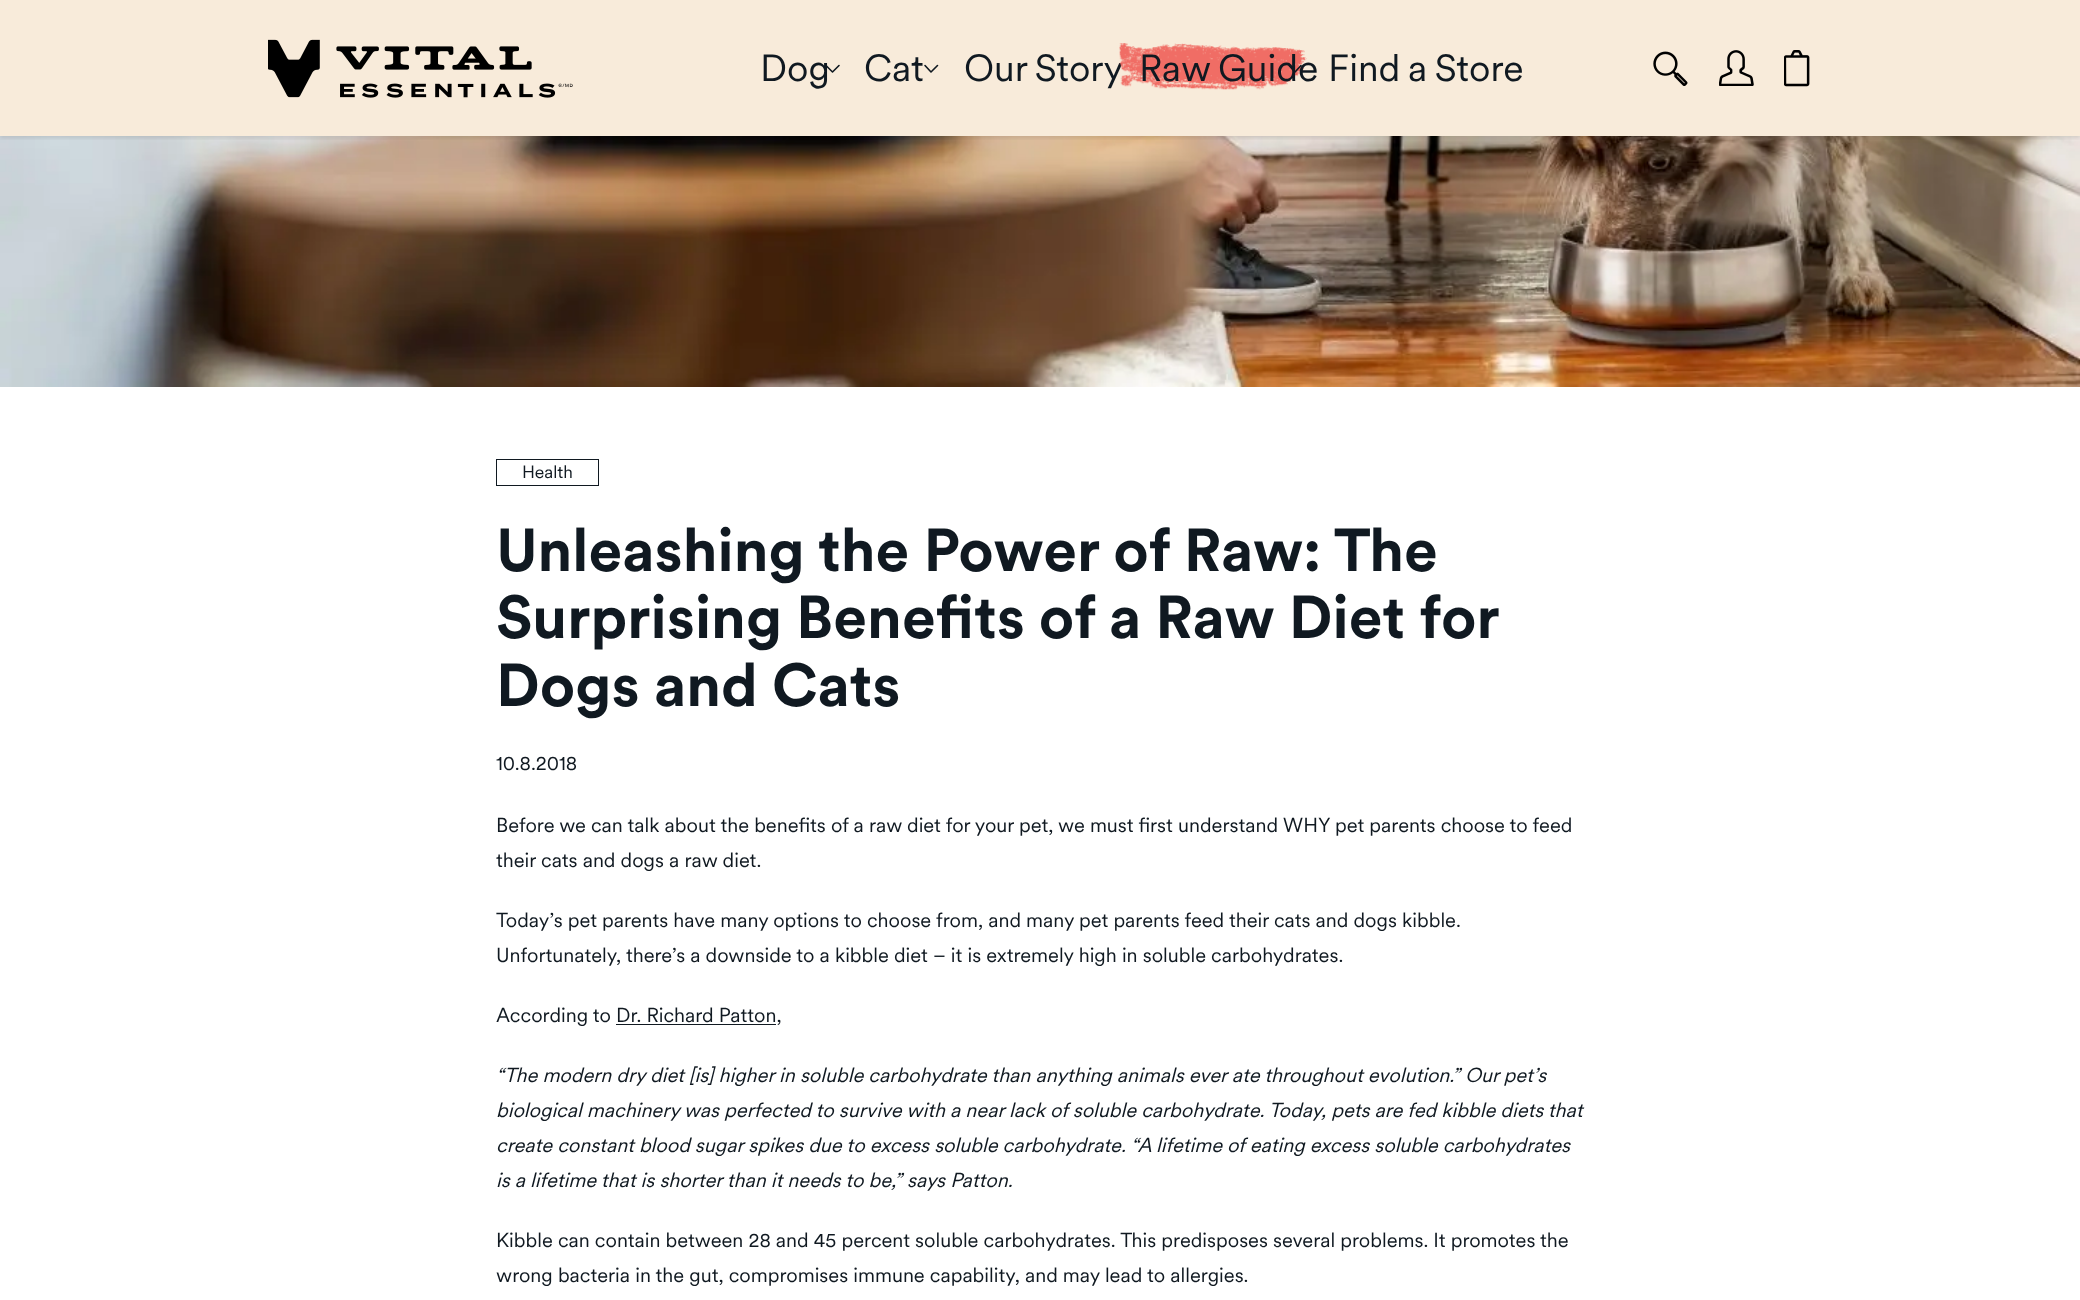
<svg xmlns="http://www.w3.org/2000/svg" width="2080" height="1300">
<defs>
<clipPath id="clip1"><rect x="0" y="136" width="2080" height="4"/></clipPath>
</defs>
<rect width="100%" height="100%" fill="#fff"/>
<rect width="2080" height="136" fill="#f8ebda"/>
<image x="268" y="39" width="305" height="59" href="media/1.png"/>
<path d="M826 65.5l6.5 6.5l6.5-6.5" fill="none" stroke="#101921" stroke-width="1.6" stroke-linecap="round" stroke-linejoin="round"/>
<path d="M925 65.5l6 6.5l6.5-6.5" fill="none" stroke="#101921" stroke-width="1.6" stroke-linecap="round" stroke-linejoin="round"/>
<text x="964" y="81" word-spacing="-2" style="font-family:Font;font-size:37.5px;fill:#101921">Our Story</text>
<image x="1119" y="43" width="20" height="44" href="media/2.png"/>
<image x="1139" y="43" width="149" height="47" href="media/3.png"/>
<image x="1287" y="48" width="20" height="37" href="media/4.png"/>
<path d="M1289 65.5l6 6.5l6-6.5" fill="none" stroke="#101921" stroke-width="1.6" stroke-linecap="round" stroke-linejoin="round"/>
<image x="1653" y="51" width="35" height="35" href="media/5.png"/>
<image x="1719" y="50" width="35" height="36" href="media/6.png"/>
<image x="1784" y="50" width="26" height="37" href="media/7.png"/>
<image x="0" y="136" width="2080" height="251" href="media/8.png"/>
<g clip-path="url(#clip1)">
<rect y="1" width="2080" height="137" fill="#0000001a" filter="blur(2px)"/>
</g>
<text x="760" y="81" style="font-family:Font;font-size:37.5px;fill:#101921">Dog</text>
<text x="864" y="81" style="font-family:Font;font-size:37.5px;fill:#101921">Cat</text>
<text x="1139" y="81" word-spacing="-2" style="font-family:Font;font-size:37.5px;fill:#101921">Raw Guide</text>
<text x="1328" y="81" word-spacing="-2" style="font-family:Font;font-size:37.5px;fill:#101921">Find a Store</text>
<rect x="496.5" y="459.5" width="102" height="26" fill="none" stroke="#101921"/>
<text x="522" y="478" style="font-family:Font;font-size:17.5px;fill:#101921">Health</text>
<text x="496" y="571" style="font-family:Font;font-size:60px;font-weight:bold;fill:#101921">Unleashing the Power of Raw: The</text>
<text x="496" y="638" word-spacing="-0.25" style="font-family:Font;font-size:60px;font-weight:bold;fill:#101921">Surprising Benefits of a Raw Diet for</text>
<text x="496" y="706" style="font-family:Font;font-size:60px;font-weight:bold;fill:#101921">Dogs and Cats</text>
<text x="496" y="770" style="font-family:Font;font-size:20px;fill:#101921">10.8.2018</text>
<text x="496" y="832" style="font-family:Font;font-size:20px;fill:#101921">Before we can talk about the benefits of a raw diet for your pet, we must first understand WHY pet parents choose to feed</text>
<text x="496" y="867" style="font-family:Font;font-size:20px;fill:#101921">their cats and dogs a raw diet.</text>
<text x="496" y="927" style="font-family:Font;font-size:20px;fill:#101921">Today’s pet parents have many options to choose from, and many pet parents feed their cats and dogs kibble.</text>
<text x="496" y="962" style="font-family:Font;font-size:20px;fill:#101921">Unfortunately, there’s a downside to a kibble diet – it is extremely high in soluble carbohydrates.</text>
<text x="496" y="1022" style="font-family:Font;font-size:20px;fill:#101921">According to Dr. Richard Patton,</text>
<rect x="616" y="1024" width="160" height="1" fill="#101921"/>
<text x="496" y="1082" style="font-family:Font;font-size:20px;font-style:italic;fill:#101921">“The modern dry diet [is] higher in soluble carbohydrate than anything animals ever ate throughout evolution.” Our pet’s</text>
<text x="496" y="1117" style="font-family:Font;font-size:20px;font-style:italic;fill:#101921">biological machinery was perfected to survive with a near lack of soluble carbohydrate. Today, pets are fed kibble diets that</text>
<text x="496" y="1152" style="font-family:Font;font-size:20px;font-style:italic;fill:#101921">create constant blood sugar spikes due to excess soluble carbohydrate. “A lifetime of eating excess soluble carbohydrates</text>
<text x="496" y="1187" style="font-family:Font;font-size:20px;font-style:italic;fill:#101921">is a lifetime that is shorter than it needs to be,” says Patton.</text>
<text x="496" y="1247" style="font-family:Font;font-size:20px;fill:#101921">Kibble can contain between 28 and 45 percent soluble carbohydrates. This predisposes several problems. It promotes the</text>
<text x="496" y="1282" style="font-family:Font;font-size:20px;fill:#101921">wrong bacteria in the gut, compromises immune capability, and may lead to allergies.</text>
</svg>
